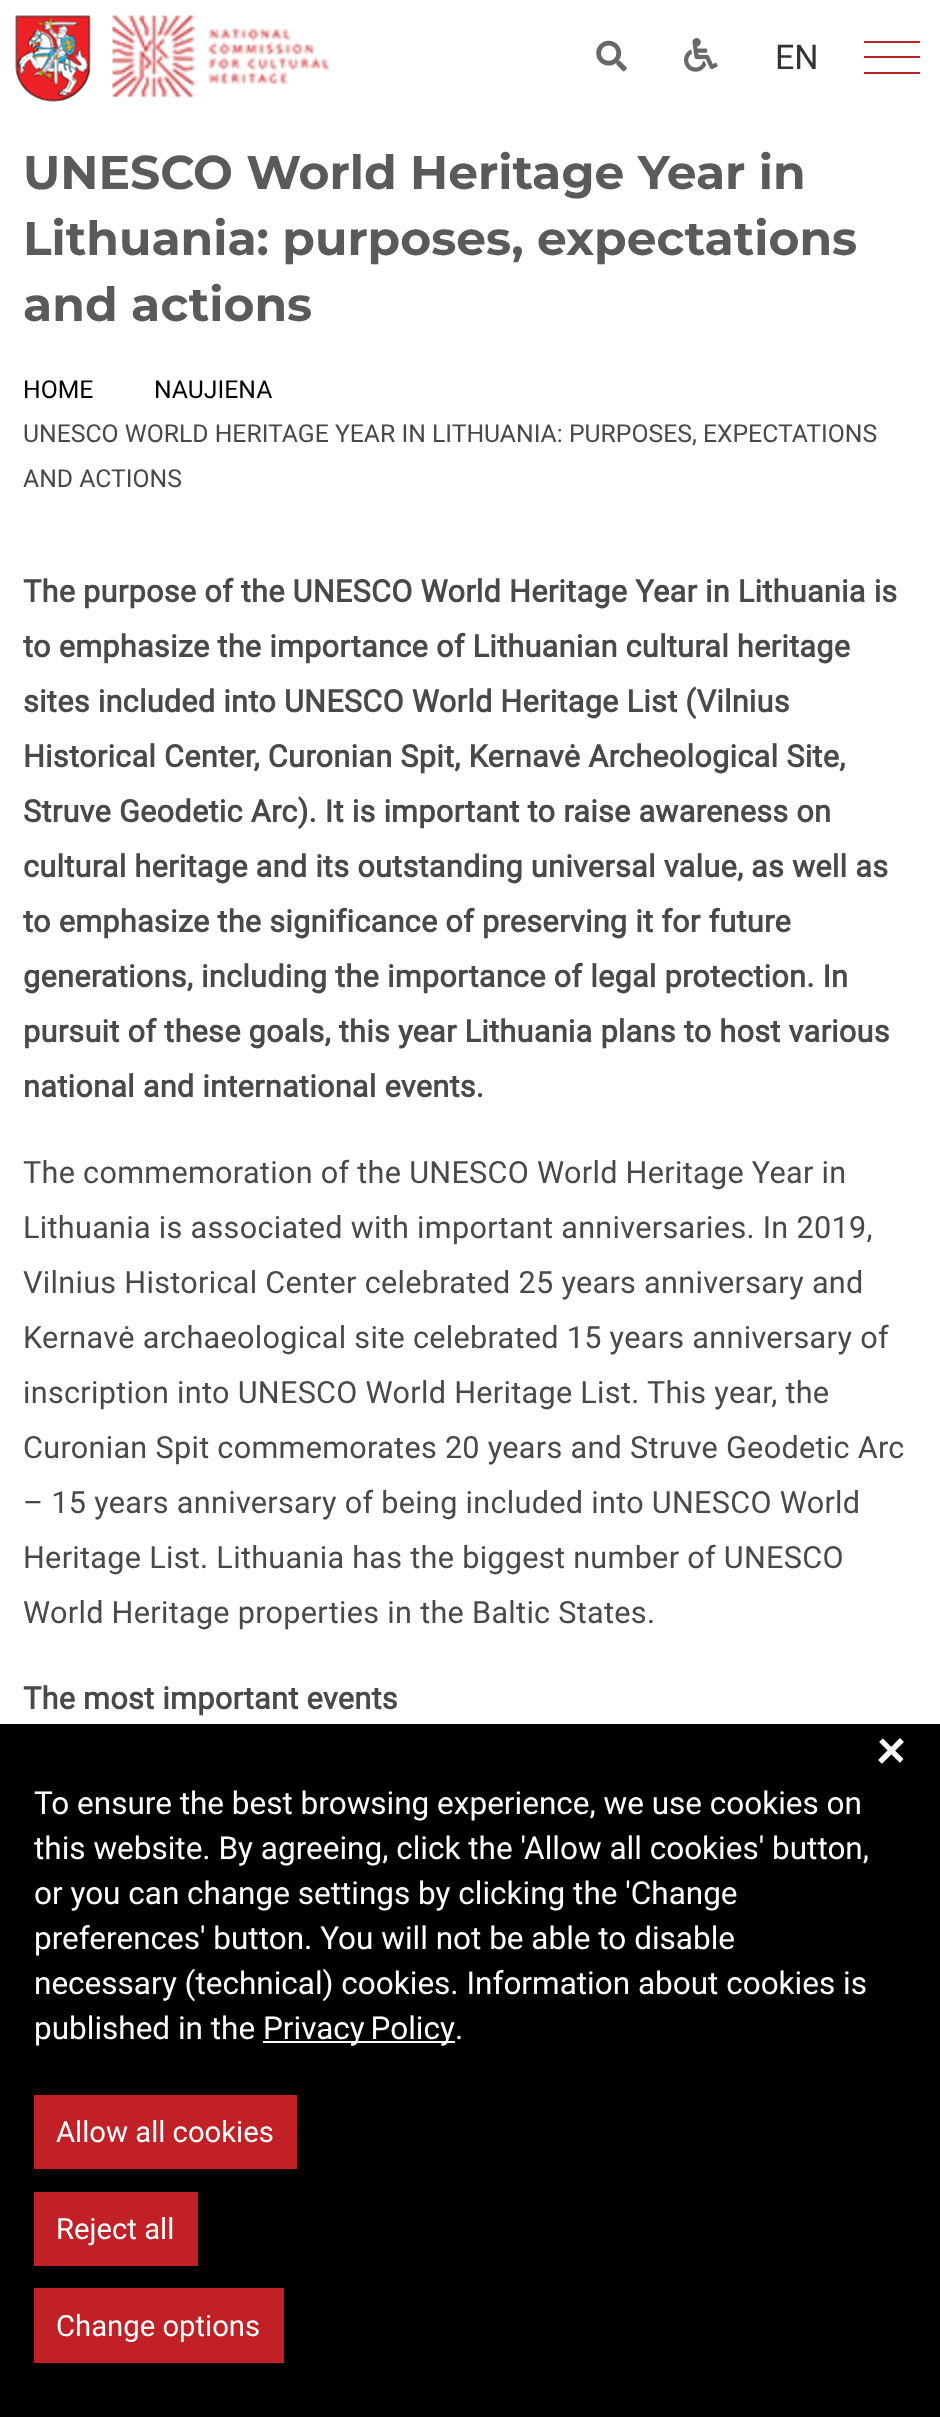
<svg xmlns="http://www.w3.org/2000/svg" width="940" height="2417">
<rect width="100%" height="100%" fill="#fff"/>
<image x="15" y="15" width="76" height="87" href="media/1.png"/>
<image x="112" y="15" width="217" height="83" href="media/2.png"/>
<image x="596" y="40" width="31" height="32" href="media/3.png"/>
<image x="684" y="38" width="34" height="34" href="media/4.png"/>
<text x="775" y="69" style="font-family:Roboto;font-size:34px;fill:#333">EN</text>
<rect x="864" y="56" width="56" height="2" fill="#c12026"/>
<rect x="864" y="41" width="56" height="2" fill="#c12026"/>
<rect x="864" y="72" width="56" height="2" fill="#c12026"/>
<text x="23" y="189" style="font-family:Montserrat;font-size:47.25px;font-weight:bold;fill:#5a5a5a">UNESCO World Heritage Year in</text>
<text x="23" y="255" style="font-family:Montserrat;font-size:47.25px;font-weight:bold;fill:#5a5a5a">Lithuania: purposes, expectations</text>
<text x="23" y="321" style="font-family:Montserrat;font-size:47.25px;font-weight:bold;fill:#5a5a5a">and actions</text>
<text x="23" y="398" style="font-family:Roboto;font-size:24.75px;fill:#000">HOME</text>
<text x="154" y="398" style="font-family:Roboto;font-size:24.75px;fill:#000">NAUJIENA</text>
<text x="23" y="442" style="font-family:Roboto;font-size:24.75px;fill:#494949">UNESCO WORLD HERITAGE YEAR IN LITHUANIA: PURPOSES, EXPECTATIONS</text>
<text x="23" y="487" style="font-family:Roboto;font-size:24.75px;fill:#494949">AND ACTIONS</text>
<text x="23" y="602" style="font-family:Roboto;font-size:30.6px;font-weight:bold;letter-spacing:0.3px;fill:#494949">The purpose of the UNESCO World Heritage Year in Lithuania is</text>
<text x="23" y="657" style="font-family:Roboto;font-size:30.6px;font-weight:bold;letter-spacing:0.3px;fill:#494949">to emphasize the importance of Lithuanian cultural heritage</text>
<text x="23" y="712" style="font-family:Roboto;font-size:30.6px;font-weight:bold;letter-spacing:0.3px;fill:#494949">sites included into UNESCO World Heritage List (Vilnius</text>
<text x="23" y="767" style="font-family:Roboto;font-size:30.6px;font-weight:bold;letter-spacing:0.3px;fill:#494949">Historical Center, Curonian Spit, Kernavė Archeological Site,</text>
<text x="23" y="822" style="font-family:Roboto;font-size:30.6px;font-weight:bold;letter-spacing:0.3px;fill:#494949">Struve Geodetic Arc). It is important to raise awareness on</text>
<text x="23" y="877" style="font-family:Roboto;font-size:30.6px;font-weight:bold;letter-spacing:0.3px;fill:#494949">cultural heritage and its outstanding universal value, as well as</text>
<text x="23" y="932" style="font-family:Roboto;font-size:30.6px;font-weight:bold;letter-spacing:0.3px;fill:#494949">to emphasize the significance of preserving it for future</text>
<text x="23" y="987" style="font-family:Roboto;font-size:30.6px;font-weight:bold;letter-spacing:0.3px;fill:#494949">generations, including the importance of legal protection. In</text>
<text x="23" y="1042" style="font-family:Roboto;font-size:30.6px;font-weight:bold;letter-spacing:0.3px;fill:#494949">pursuit of these goals, this year Lithuania plans to host various</text>
<text x="23" y="1097" style="font-family:Roboto;font-size:30.6px;font-weight:bold;letter-spacing:0.3px;fill:#494949">national and international events.</text>
<text x="23" y="1183" style="font-family:Roboto;font-size:30.6px;letter-spacing:0.3px;fill:#494949">The commemoration of the UNESCO World Heritage Year in</text>
<text x="23" y="1238" style="font-family:Roboto;font-size:30.6px;letter-spacing:0.3px;fill:#494949">Lithuania is associated with important anniversaries. In 2019,</text>
<text x="23" y="1293" style="font-family:Roboto;font-size:30.6px;letter-spacing:0.3px;fill:#494949">Vilnius Historical Center celebrated 25 years anniversary and</text>
<text x="23" y="1348" style="font-family:Roboto;font-size:30.6px;letter-spacing:0.3px;fill:#494949">Kernavė archaeological site celebrated 15 years anniversary of</text>
<text x="23" y="1403" style="font-family:Roboto;font-size:30.6px;letter-spacing:0.3px;fill:#494949">inscription into UNESCO World Heritage List. This year, the</text>
<text x="23" y="1458" style="font-family:Roboto;font-size:30.6px;letter-spacing:0.3px;fill:#494949">Curonian Spit commemorates 20 years and Struve Geodetic Arc</text>
<text x="23" y="1513" style="font-family:Roboto;font-size:30.6px;letter-spacing:0.3px;fill:#494949">– 15 years anniversary of being included into UNESCO World</text>
<text x="23" y="1568" style="font-family:Roboto;font-size:30.6px;letter-spacing:0.3px;fill:#494949">Heritage List. Lithuania has the biggest number of UNESCO</text>
<text x="23" y="1623" style="font-family:Roboto;font-size:30.6px;letter-spacing:0.3px;fill:#494949">World Heritage properties in the Baltic States.</text>
<text x="23" y="1709" style="font-family:Roboto;font-size:30.6px;font-weight:bold;letter-spacing:0.3px;fill:#494949">The most important events</text>
<rect y="1724" width="940" height="693" fill="#000"/>
<text x="865" y="1753" transform="rotate(45 865 1753)" style="font-family:Roboto;font-size:60px;fill:#fff">+</text>
<text x="34" y="1814" style="font-family:Roboto;font-size:31.5px;fill:#fff">To ensure the best browsing experience, we use cookies on</text>
<text x="34" y="1859" style="font-family:Roboto;font-size:31.5px;fill:#fff">this website. By agreeing, click the 'Allow all cookies' button,</text>
<text x="34" y="1904" style="font-family:Roboto;font-size:31.5px;fill:#fff">or you can change settings by clicking the 'Change</text>
<text x="34" y="1949" style="font-family:Roboto;font-size:31.5px;fill:#fff">preferences' button. You will not be able to disable</text>
<text x="34" y="1994" style="font-family:Roboto;font-size:31.5px;fill:#fff">necessary (technical) cookies. Information about cookies is</text>
<text x="34" y="2039" style="font-family:Roboto;font-size:31.5px;fill:#fff">published in the</text>
<rect x="263" y="2041" width="192" height="2" fill="#fff"/>
<text x="263" y="2039" word-spacing="-2" style="font-family:Roboto;font-size:31.5px;fill:#fff">Privacy Policy</text>
<text x="455" y="2039" style="font-family:Roboto;font-size:31.5px;fill:#fff">.</text>
<rect x="34" y="2095" width="263" height="74" fill="#c12026"/>
<text x="56" y="2142" style="font-family:Roboto;font-size:29.25px;fill:#fff">Allow all cookies</text>
<rect x="34" y="2192" width="164" height="74" fill="#c12026"/>
<text x="56" y="2239" style="font-family:Roboto;font-size:29.25px;fill:#fff">Reject all</text>
<rect x="34" y="2288" width="250" height="75" fill="#c12026"/>
<text x="56" y="2336" style="font-family:Roboto;font-size:29.25px;fill:#fff">Change options</text>
</svg>
